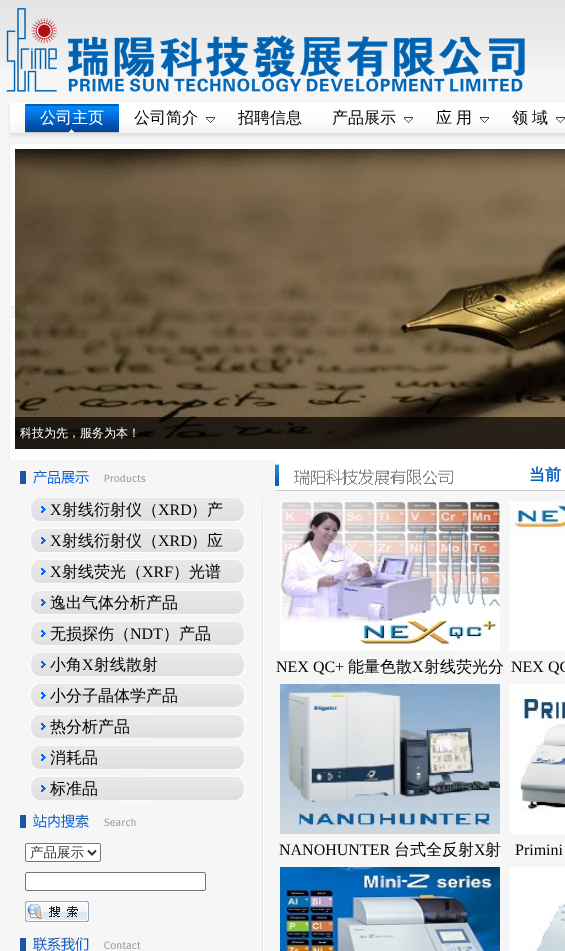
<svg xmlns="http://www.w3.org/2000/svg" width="565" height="951">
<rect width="100%" height="100%" fill="#f6f6f6"/>
<image x="0" y="0" width="565" height="70" href="media/1.png"/>
<image x="6" y="8" width="519" height="84" href="media/2.png"/>
<image x="8" y="103" width="557" height="35" href="media/3.png"/>
<image x="25" y="104" width="94" height="29" href="media/4.png"/>
<text x="40" y="123" style="font-family:WenQuanYi Zen Hei;font-size:16px;font-weight:500;fill:#fff">公司主页</text>
<text x="134" y="123" style="font-family:WenQuanYi Zen Hei;font-size:16px;font-weight:500;fill:#000">公司简介</text>
<image x="206" y="117" width="9" height="6" href="media/5.png"/>
<text x="238" y="123" style="font-family:WenQuanYi Zen Hei;font-size:16px;font-weight:500;fill:#000">招聘信息</text>
<text x="332" y="123" style="font-family:WenQuanYi Zen Hei;font-size:16px;font-weight:500;fill:#000">产品展示</text>
<image x="404" y="117" width="9" height="6" href="media/5.png"/>
<text x="436" y="123" style="font-family:WenQuanYi Zen Hei;font-size:16px;font-weight:500;fill:#000">应</text>
<text x="456" y="123" style="font-family:WenQuanYi Zen Hei;font-size:16px;font-weight:500;fill:#000">用</text>
<image x="480" y="117" width="9" height="6" href="media/5.png"/>
<text x="512" y="123" style="font-family:WenQuanYi Zen Hei;font-size:16px;font-weight:500;fill:#000">领</text>
<text x="532" y="123" style="font-family:WenQuanYi Zen Hei;font-size:16px;font-weight:500;fill:#000">域</text>
<image x="556" y="117" width="9" height="6" href="media/5.png"/>
<image x="9" y="143" width="556" height="317" href="media/6.png"/>
<image x="15" y="149" width="550" height="300" href="media/7.png"/>
<rect x="15" y="417" width="550" height="32" fill="#000000b3"/>
<text x="20" y="437" style="font-family:WenQuanYi Zen Hei;font-size:12px;font-weight:500;fill:#fff">科技为先，服务为本！</text>
<image x="262" y="488" width="2" height="463" href="media/8.png"/>
<image x="16" y="470" width="130" height="15" href="media/9.png"/>
<image x="30" y="497" width="215" height="25" href="media/10.png"/>
<text x="50" y="515" style="font-family:Liberation Serif;font-size:16px;fill:#000">X</text>
<text x="62" y="515" style="font-family:WenQuanYi Zen Hei;font-size:16px;font-weight:500;fill:#000">射线衍射仪（</text>
<text x="158" y="515" style="font-family:Liberation Serif;font-size:16px;fill:#000">XRD</text>
<text x="191" y="515" style="font-family:WenQuanYi Zen Hei;font-size:16px;font-weight:500;fill:#000">）产</text>
<image x="30" y="528" width="215" height="25" href="media/10.png"/>
<text x="50" y="546" style="font-family:Liberation Serif;font-size:16px;fill:#000">X</text>
<text x="62" y="546" style="font-family:WenQuanYi Zen Hei;font-size:16px;font-weight:500;fill:#000">射线衍射仪（</text>
<text x="158" y="546" style="font-family:Liberation Serif;font-size:16px;fill:#000">XRD</text>
<text x="191" y="546" style="font-family:WenQuanYi Zen Hei;font-size:16px;font-weight:500;fill:#000">）应</text>
<image x="30" y="559" width="215" height="25" href="media/10.png"/>
<text x="50" y="577" style="font-family:Liberation Serif;font-size:16px;fill:#000">X</text>
<text x="62" y="577" style="font-family:WenQuanYi Zen Hei;font-size:16px;font-weight:500;fill:#000">射线荧光（</text>
<text x="142" y="577" style="font-family:Liberation Serif;font-size:16px;fill:#000">XRF</text>
<text x="173" y="577" style="font-family:WenQuanYi Zen Hei;font-size:16px;font-weight:500;fill:#000">）光谱</text>
<image x="30" y="590" width="215" height="25" href="media/10.png"/>
<text x="50" y="608" style="font-family:WenQuanYi Zen Hei;font-size:16px;font-weight:500;fill:#000">逸出气体分析产品</text>
<image x="30" y="621" width="215" height="25" href="media/10.png"/>
<text x="50" y="639" style="font-family:WenQuanYi Zen Hei;font-size:16px;font-weight:500;fill:#000">无损探伤（</text>
<text x="130" y="639" style="font-family:Liberation Serif;font-size:16px;fill:#000">NDT</text>
<text x="163" y="639" style="font-family:WenQuanYi Zen Hei;font-size:16px;font-weight:500;fill:#000">）产品</text>
<image x="30" y="652" width="215" height="25" href="media/10.png"/>
<text x="50" y="670" style="font-family:WenQuanYi Zen Hei;font-size:16px;font-weight:500;fill:#000">小角</text>
<text x="82" y="670" style="font-family:Liberation Serif;font-size:16px;fill:#000">X</text>
<text x="94" y="670" style="font-family:WenQuanYi Zen Hei;font-size:16px;font-weight:500;fill:#000">射线散射</text>
<image x="30" y="683" width="215" height="25" href="media/10.png"/>
<text x="50" y="701" style="font-family:WenQuanYi Zen Hei;font-size:16px;font-weight:500;fill:#000">小分子晶体学产品</text>
<image x="30" y="714" width="215" height="25" href="media/10.png"/>
<text x="50" y="732" style="font-family:WenQuanYi Zen Hei;font-size:16px;font-weight:500;fill:#000">热分析产品</text>
<image x="30" y="745" width="215" height="25" href="media/10.png"/>
<text x="50" y="763" style="font-family:WenQuanYi Zen Hei;font-size:16px;font-weight:500;fill:#000">消耗品</text>
<image x="30" y="776" width="215" height="25" href="media/10.png"/>
<text x="50" y="794" style="font-family:WenQuanYi Zen Hei;font-size:16px;font-weight:500;fill:#000">标准品</text>
<image x="16" y="813" width="120" height="15" href="media/11.png"/>
<rect x="25.5" y="843.5" width="75" height="18" rx="1.5" fill="#fff" stroke="#767676"/>
<path d="M88 850.5l4 4l4-4" fill="none" stroke="#333" stroke-width="2"/>
<text x="30" y="857" style="font-family:WenQuanYi Zen Hei;font-size:13.5px;font-weight:500;fill:#333">产品展示</text>
<rect x="25.5" y="872.5" width="180" height="18" rx="1.5" fill="#fff" stroke="#767676"/>
<image x="25" y="901" width="64" height="21" href="media/12.png"/>
<image x="20" y="931" width="121" height="20" href="media/13.png"/>
<image x="275" y="460" width="290" height="30" href="media/14.png"/>
<rect x="275" y="490" width="290" height="1" fill="#ccc"/>
<text x="529" y="480" style="font-family:WenQuanYi Zen Hei;font-size:16px;font-weight:bold;fill:#025dbf">当前</text>
<image x="280" y="501" width="220" height="150" href="media/15.png"/>
<text x="276" y="672" style="font-family:Liberation Serif;font-size:16px;fill:#000">NEX QC+</text>
<text x="348" y="672" style="font-family:WenQuanYi Zen Hei;font-size:16px;font-weight:500;fill:#000">能量色散</text>
<text x="412" y="672" style="font-family:Liberation Serif;font-size:16px;fill:#000">X</text>
<text x="424" y="672" style="font-family:WenQuanYi Zen Hei;font-size:16px;font-weight:500;fill:#000">射线荧光分</text>
<image x="510" y="501" width="55" height="150" href="media/16.png"/>
<text x="511" y="672" style="font-family:Liberation Serif;font-size:16px;fill:#000">NEX QC</text>
<image x="280" y="684" width="220" height="150" href="media/17.png"/>
<text x="279" y="855" style="font-family:Liberation Serif;font-size:16px;fill:#000">NANOHUNTER</text>
<text x="394" y="855" style="font-family:WenQuanYi Zen Hei;font-size:16px;font-weight:500;fill:#000">台式全反射</text>
<text x="474" y="855" style="font-family:Liberation Serif;font-size:16px;fill:#000">X</text>
<text x="485" y="855" style="font-family:WenQuanYi Zen Hei;font-size:16px;font-weight:500;fill:#000">射</text>
<image x="510" y="684" width="55" height="150" href="media/18.png"/>
<text x="515" y="855" style="font-family:Liberation Serif;font-size:16px;fill:#000">Primini</text>
<image x="280" y="867" width="220" height="84" href="media/19.png"/>
<image x="510" y="867" width="55" height="84" href="media/20.png"/>
</svg>
